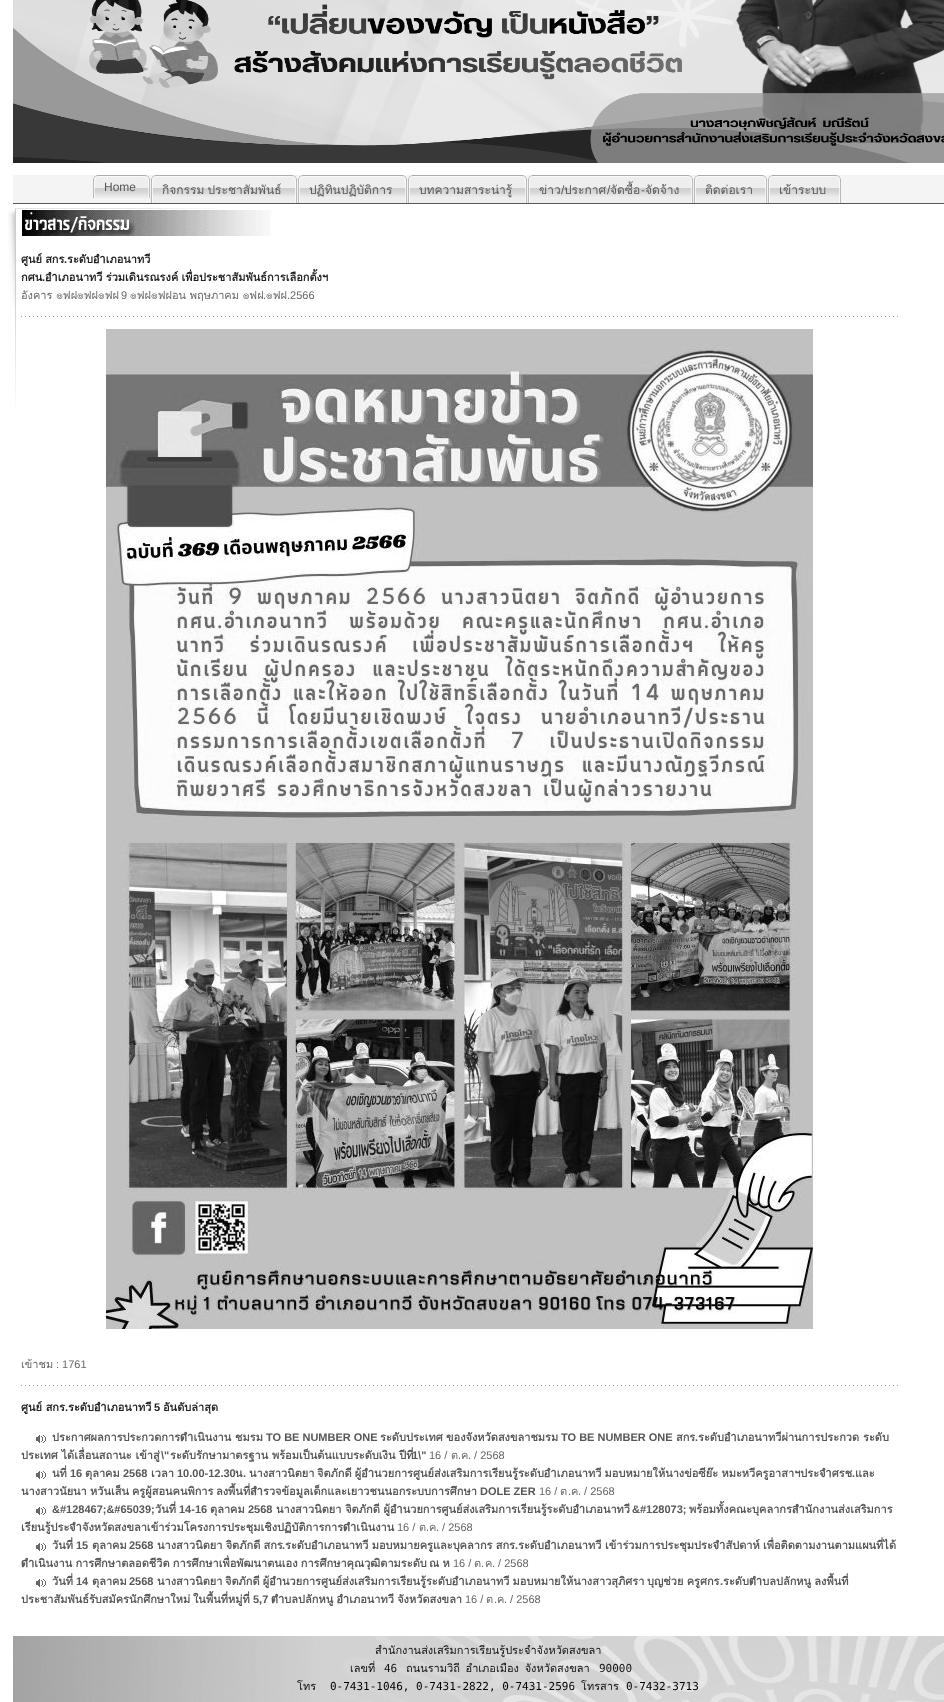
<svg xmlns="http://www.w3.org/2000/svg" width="944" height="1702">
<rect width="100%" height="100%" fill="#fff"/>
<image x="13" y="0" width="931" height="163" href="media/1.png"/>
<rect x="13" y="175" width="931" height="28" fill="#f4f4f4"/>
<rect x="13" y="203" width="931" height="1" fill="#575757"/>
<image x="93" y="175" width="5" height="23" href="media/2.png"/>
<image x="98" y="175" width="52" height="23" href="media/3.png"/>
<text x="104" y="191" style="font-family:Liberation Sans;font-size:12px;fill:#575757">Home</text>
<image x="151" y="175" width="5" height="28" href="media/4.png"/>
<image x="156" y="175" width="141" height="28" href="media/5.png"/>
<text x="162" y="194" word-spacing="-1" style="font-family:Loma;font-size:12px;fill:#575757">กิจกรรม ประชาสัมพันธ์</text>
<image x="298" y="175" width="5" height="28" href="media/4.png"/>
<image x="303" y="175" width="104" height="28" href="media/6.png"/>
<text x="309" y="194" style="font-family:Loma;font-size:12px;fill:#575757">ปฏิทินปฏิบัติการ</text>
<image x="408" y="175" width="5" height="28" href="media/4.png"/>
<image x="413" y="175" width="114" height="28" href="media/7.png"/>
<text x="419" y="194" style="font-family:Loma;font-size:12px;fill:#575757">บทความสาระน่ารู้</text>
<image x="528" y="175" width="5" height="28" href="media/4.png"/>
<image x="533" y="175" width="160" height="28" href="media/8.png"/>
<text x="539" y="194" style="font-family:Loma;font-size:12px;fill:#575757">ข่าว</text>
<text x="561" y="194" style="font-family:Liberation Sans;font-size:12px;fill:#575757">/</text>
<text x="564" y="194" style="font-family:Loma;font-size:12px;fill:#575757">ประกาศ</text>
<text x="607" y="194" style="font-family:Liberation Sans;font-size:12px;fill:#575757">/</text>
<text x="610" y="194" style="font-family:Loma;font-size:12px;fill:#575757">จัดซื้อ</text>
<text x="641" y="194" style="font-family:Liberation Sans;font-size:12px;fill:#575757">-</text>
<text x="645" y="194" style="font-family:Loma;font-size:12px;fill:#575757">จัดจ้าง</text>
<image x="694" y="175" width="5" height="28" href="media/4.png"/>
<image x="699" y="175" width="68" height="28" href="media/9.png"/>
<text x="705" y="194" style="font-family:Loma;font-size:12px;fill:#575757">ติดต่อเรา</text>
<image x="768" y="175" width="5" height="28" href="media/4.png"/>
<image x="773" y="175" width="68" height="28" href="media/10.png"/>
<text x="779" y="194" style="font-family:Loma;font-size:12px;fill:#575757">เข้าระบบ</text>
<image x="8" y="208" width="8" height="199" href="media/11.png"/>
<image x="16" y="208" width="198" height="1" href="media/12.png"/>
<image x="22" y="210" width="249" height="26" href="media/13.png"/>
<text x="21" y="263" word-spacing="-0.5" style="font-family:Loma;font-size:11px;font-weight:bold;fill:#212121">ศูนย์ สกร</text>
<text x="64" y="263" style="font-family:Liberation Sans;font-size:11px;font-weight:bold;fill:#212121">.</text>
<text x="67" y="263" style="font-family:Loma;font-size:11px;font-weight:bold;fill:#212121">ระดับอำเภอนาทวี</text>
<text x="21" y="281" style="font-family:Loma;font-size:11px;font-weight:bold;fill:#212121">กศน</text>
<text x="42" y="281" style="font-family:Liberation Sans;font-size:11px;font-weight:bold;fill:#212121">.</text>
<text x="45" y="281" word-spacing="-0.5" style="font-family:Loma;font-size:11px;font-weight:bold;fill:#212121">อำเภอนาทวี ร่วมเดินรณรงค์ เพื่อประชาสัมพันธ์การเลือกตั้งฯ</text>
<text x="21" y="299" style="font-family:Loma;font-size:11px;fill:#666">อังคาร ๏ฟฝ๏ฟฝ๏ฟฝ</text>
<text x="121" y="299" style="font-family:Liberation Sans;font-size:11px;fill:#666">9</text>
<text x="130" y="299" style="font-family:Loma;font-size:11px;fill:#666">๏ฟฝ๏ฟฝอน พฤษภาคม ๏ฟฝ</text>
<text x="263" y="299" style="font-family:Liberation Sans;font-size:11px;fill:#666">.</text>
<text x="266" y="299" style="font-family:Loma;font-size:11px;fill:#666">๏ฟฝ</text>
<text x="287" y="299" style="font-family:Liberation Sans;font-size:11px;fill:#666">.2566</text>
<image x="21" y="316" width="877" height="1" href="media/14.png"/>
<image x="106" y="329" width="707" height="1000" href="media/15.png"/>
<text x="21" y="1368" style="font-family:Loma;font-size:11px;fill:#666">เข้าชม</text>
<text x="56" y="1368" style="font-family:Liberation Sans;font-size:11px;fill:#666">: 1761</text>
<image x="21" y="1385" width="877" height="1" href="media/14.png"/>
<text x="21" y="1411" style="font-family:Loma;font-size:11px;font-weight:bold;fill:#212121">ศูนย์ สกร</text>
<text x="65" y="1411" style="font-family:Liberation Sans;font-size:11px;font-weight:bold;fill:#212121">.</text>
<text x="68" y="1411" style="font-family:Loma;font-size:11px;font-weight:bold;fill:#212121">ระดับอำเภอนาทวี</text>
<text x="154" y="1411" style="font-family:Liberation Sans;font-size:11px;font-weight:bold;fill:#212121">5</text>
<text x="163" y="1411" style="font-family:Loma;font-size:11px;font-weight:bold;fill:#212121">อันดับล่าสุด</text>
<image x="36" y="1435" width="10" height="8" href="media/16.png"/>
<text x="52" y="1441" style="font-family:Loma;font-size:11px;font-weight:bold;fill:#575757">ประกาศผลการประกวดการดำเนินงาน</text>
<text x="235" y="1441" style="font-family:Loma;font-size:11px;font-weight:bold;fill:#575757">ชมรม</text>
<text x="266" y="1441" style="font-family:Liberation Sans;font-size:11px;font-weight:bold;fill:#575757">TO BE NUMBER ONE</text>
<text x="380" y="1441" style="font-family:Loma;font-size:11px;font-weight:bold;fill:#575757">ระดับประเทศ</text>
<text x="446" y="1441" style="font-family:Loma;font-size:11px;font-weight:bold;fill:#575757">ของจังหวัดสงขลาชมรม</text>
<text x="561" y="1441" style="font-family:Liberation Sans;font-size:11px;font-weight:bold;fill:#575757">TO BE NUMBER ONE</text>
<text x="676" y="1441" style="font-family:Loma;font-size:11px;font-weight:bold;fill:#575757">สกร</text>
<text x="695" y="1441" style="font-family:Liberation Sans;font-size:11px;font-weight:bold;fill:#575757">.</text>
<text x="698" y="1441" style="font-family:Loma;font-size:11px;font-weight:bold;fill:#575757">ระดับอำเภอนาทวีผ่านการประกวด</text>
<text x="863" y="1441" style="font-family:Loma;font-size:11px;font-weight:bold;fill:#575757">ระดับ</text>
<text x="21" y="1459" style="font-family:Loma;font-size:11px;font-weight:bold;fill:#575757">ประเทศ ได้เลื่อนสถานะ เข้าสู่</text>
<text x="161" y="1459" style="font-family:Liberation Sans;font-size:11px;font-weight:bold;fill:#575757">\"</text>
<text x="170" y="1459" style="font-family:Loma;font-size:11px;font-weight:bold;fill:#575757">ระดับรักษามาตรฐาน พร้อมเป็นต้นแบบระดับเงิน ปีที่</text>
<text x="412" y="1459" style="font-family:Liberation Sans;font-size:11px;font-weight:bold;fill:#575757">1\"</text>
<text x="429" y="1459" style="font-family:Liberation Sans;font-size:11px;fill:#666">16 /</text>
<text x="451" y="1459" style="font-family:Loma;font-size:11px;fill:#666">ต</text>
<text x="458" y="1459" style="font-family:Liberation Sans;font-size:11px;fill:#666">.</text>
<text x="461" y="1459" style="font-family:Loma;font-size:11px;fill:#666">ค</text>
<text x="468" y="1459" style="font-family:Liberation Sans;font-size:11px;fill:#666">. / 2568</text>
<image x="36" y="1471" width="10" height="8" href="media/16.png"/>
<text x="52" y="1477" style="font-family:Loma;font-size:11px;font-weight:bold;fill:#575757">นที่</text>
<text x="70" y="1477" style="font-family:Liberation Sans;font-size:11px;font-weight:bold;fill:#575757">16</text>
<text x="85" y="1477" style="font-family:Loma;font-size:11px;font-weight:bold;fill:#575757">ตุลาคม</text>
<text x="123" y="1477" style="font-family:Liberation Sans;font-size:11px;font-weight:bold;fill:#575757">2568</text>
<text x="151" y="1477" style="font-family:Loma;font-size:11px;font-weight:bold;fill:#575757">เวลา</text>
<text x="177" y="1477" style="font-family:Liberation Sans;font-size:11px;font-weight:bold;fill:#575757">10.00-12.30</text>
<text x="235" y="1477" style="font-family:Loma;font-size:11px;font-weight:bold;fill:#575757">น</text>
<text x="243" y="1477" style="font-family:Liberation Sans;font-size:11px;font-weight:bold;fill:#575757">.</text>
<text x="249" y="1477" style="font-family:Loma;font-size:11px;font-weight:bold;fill:#575757">นางสาวนิตยา</text>
<text x="317" y="1477" word-spacing="-0.5" style="font-family:Loma;font-size:11px;font-weight:bold;fill:#575757">จิตภักดี ผู้อำนวยการศูนย์ส่งเสริมการเรียนรู้ระดับอำเภอนาทวี มอบหมายให้นางข่อซีย๊ะ หมะหวีครูอาสาฯประจำศรช</text>
<text x="852" y="1477" style="font-family:Liberation Sans;font-size:11px;font-weight:bold;fill:#575757">.</text>
<text x="855" y="1477" style="font-family:Loma;font-size:11px;font-weight:bold;fill:#575757">และ</text>
<text x="21" y="1495" style="font-family:Loma;font-size:11px;font-weight:bold;fill:#575757">นางสาวนัยนา</text>
<text x="90" y="1495" style="font-family:Loma;font-size:11px;font-weight:bold;fill:#575757">หวันเส็น</text>
<text x="132" y="1495" style="font-family:Loma;font-size:11px;font-weight:bold;fill:#575757">ครูผู้สอนคนพิการ</text>
<text x="216" y="1495" style="font-family:Loma;font-size:11px;font-weight:bold;fill:#575757">ลงพื้นที่สำรวจข้อมูลเด็กและเยาวชนนอกระบบการศึกษา</text>
<text x="480" y="1495" style="font-family:Liberation Sans;font-size:11px;font-weight:bold;fill:#575757">DOLE ZER</text>
<text x="539" y="1495" style="font-family:Liberation Sans;font-size:11px;fill:#666">16 /</text>
<text x="560" y="1495" style="font-family:Loma;font-size:11px;fill:#666">ต</text>
<text x="568" y="1495" style="font-family:Liberation Sans;font-size:11px;fill:#666">.</text>
<text x="571" y="1495" style="font-family:Loma;font-size:11px;fill:#666">ค</text>
<text x="578" y="1495" style="font-family:Liberation Sans;font-size:11px;fill:#666">. / 2568</text>
<image x="36" y="1507" width="10" height="8" href="media/16.png"/>
<text x="52" y="1513" style="font-family:Liberation Sans;font-size:11px;font-weight:bold;fill:#575757">&amp;#128467;&amp;#65039;</text>
<text x="155" y="1513" style="font-family:Loma;font-size:11px;font-weight:bold;fill:#575757">วันที่</text>
<text x="179" y="1513" style="font-family:Liberation Sans;font-size:11px;font-weight:bold;fill:#575757">14-16</text>
<text x="210" y="1513" style="font-family:Loma;font-size:11px;font-weight:bold;fill:#575757">ตุลาคม</text>
<text x="248" y="1513" style="font-family:Liberation Sans;font-size:11px;font-weight:bold;fill:#575757">2568</text>
<text x="276" y="1513" style="font-family:Loma;font-size:11px;font-weight:bold;fill:#575757">นางสาวนิตยา จิตภักดี ผู้อำนวยการศูนย์ส่งเสริมการเรียนรู้ระดับอำเภอนาทวี</text>
<text x="632" y="1513" style="font-family:Liberation Sans;font-size:11px;font-weight:bold;fill:#575757">&amp;#128073;</text>
<text x="689" y="1513" style="font-family:Loma;font-size:11px;font-weight:bold;fill:#575757">พร้อมทั้งคณะบุคลากรสำนักงานส่งเสริมการ</text>
<text x="21" y="1531" style="font-family:Loma;font-size:11px;font-weight:bold;fill:#575757">เรียนรู้ประจำจังหวัดสงขลาเข้าร่วมโครงการประชุมเชิงปฏิบัติการการดำเนินงาน</text>
<text x="397" y="1531" style="font-family:Liberation Sans;font-size:11px;fill:#666">16 /</text>
<text x="419" y="1531" style="font-family:Loma;font-size:11px;fill:#666">ต</text>
<text x="426" y="1531" style="font-family:Liberation Sans;font-size:11px;fill:#666">.</text>
<text x="429" y="1531" style="font-family:Loma;font-size:11px;fill:#666">ค</text>
<text x="436" y="1531" style="font-family:Liberation Sans;font-size:11px;fill:#666">. / 2568</text>
<image x="36" y="1543" width="10" height="8" href="media/16.png"/>
<text x="52" y="1549" style="font-family:Loma;font-size:11px;font-weight:bold;fill:#575757">วันที่</text>
<text x="76" y="1549" style="font-family:Liberation Sans;font-size:11px;font-weight:bold;fill:#575757">15</text>
<text x="92" y="1549" style="font-family:Loma;font-size:11px;font-weight:bold;fill:#575757">ตุลาคม</text>
<text x="129" y="1549" style="font-family:Liberation Sans;font-size:11px;font-weight:bold;fill:#575757">2568</text>
<text x="157" y="1549" word-spacing="-0.5" style="font-family:Loma;font-size:11px;font-weight:bold;fill:#575757">นางสาวนิตยา จิตภักดี สกร</text>
<text x="282" y="1549" style="font-family:Liberation Sans;font-size:11px;font-weight:bold;fill:#575757">.</text>
<text x="285" y="1549" word-spacing="-0.5" style="font-family:Loma;font-size:11px;font-weight:bold;fill:#575757">ระดับอำเภอนาทวี มอบหมายครูและบุคลากร สกร</text>
<text x="515" y="1549" style="font-family:Liberation Sans;font-size:11px;font-weight:bold;fill:#575757">.</text>
<text x="518" y="1549" style="font-family:Loma;font-size:11px;font-weight:bold;fill:#575757">ระดับอำเภอนาทวี</text>
<text x="605" y="1549" word-spacing="-0.5" style="font-family:Loma;font-size:11px;font-weight:bold;fill:#575757">เข้าร่วมการประชุมประจำสัปดาห์ เพื่อติดตามงานตามแผนที่ได้</text>
<text x="21" y="1567" word-spacing="-0.5" style="font-family:Loma;font-size:11px;font-weight:bold;fill:#575757">ดำเนินงาน การศึกษาตลอดชีวิต การศึกษาเพื่อพัฒนาตนเอง การศึกษาคุณวุฒิตามระดับ</text>
<text x="429" y="1567" word-spacing="-0.5" style="font-family:Loma;font-size:11px;font-weight:bold;fill:#575757">ณ ห</text>
<text x="453" y="1567" style="font-family:Liberation Sans;font-size:11px;fill:#666">16 /</text>
<text x="474" y="1567" style="font-family:Loma;font-size:11px;fill:#666">ต</text>
<text x="481" y="1567" style="font-family:Liberation Sans;font-size:11px;fill:#666">.</text>
<text x="485" y="1567" style="font-family:Loma;font-size:11px;fill:#666">ค</text>
<text x="492" y="1567" style="font-family:Liberation Sans;font-size:11px;fill:#666">. / 2568</text>
<image x="36" y="1579" width="10" height="8" href="media/16.png"/>
<text x="52" y="1585" style="font-family:Loma;font-size:11px;font-weight:bold;fill:#575757">วันที่</text>
<text x="76" y="1585" style="font-family:Liberation Sans;font-size:11px;font-weight:bold;fill:#575757">14</text>
<text x="92" y="1585" style="font-family:Loma;font-size:11px;font-weight:bold;fill:#575757">ตุลาคม</text>
<text x="129" y="1585" style="font-family:Liberation Sans;font-size:11px;font-weight:bold;fill:#575757">2568</text>
<text x="157" y="1585" style="font-family:Loma;font-size:11px;font-weight:bold;fill:#575757">นางสาวนิตยา</text>
<text x="225" y="1585" word-spacing="-0.5" style="font-family:Loma;font-size:11px;font-weight:bold;fill:#575757">จิตภักดี ผู้อำนวยการศูนย์ส่งเสริมการเรียนรู้ระดับอำเภอนาทวี มอบหมายให้นางสาวสุภิศรา</text>
<text x="647" y="1585" word-spacing="-0.5" style="font-family:Loma;font-size:11px;font-weight:bold;fill:#575757">บุญช่วย ครูศกร</text>
<text x="720" y="1585" style="font-family:Liberation Sans;font-size:11px;font-weight:bold;fill:#575757">.</text>
<text x="723" y="1585" word-spacing="-0.5" style="font-family:Loma;font-size:11px;font-weight:bold;fill:#575757">ระดับตำบลปลักหนู ลงพื้นที่</text>
<text x="21" y="1603" style="font-family:Loma;font-size:11px;font-weight:bold;fill:#575757">ประชาสัมพันธ์รับสมัครนักศึกษาใหม่</text>
<text x="193" y="1603" style="font-family:Loma;font-size:11px;font-weight:bold;fill:#575757">ในพื้นที่หมู่ที่</text>
<text x="253" y="1603" style="font-family:Liberation Sans;font-size:11px;font-weight:bold;fill:#575757">5,7</text>
<text x="271" y="1603" word-spacing="-0.5" style="font-family:Loma;font-size:11px;font-weight:bold;fill:#575757">ตำบลปลักหนู อำเภอนาทวี จังหวัดสงขลา</text>
<text x="465" y="1603" style="font-family:Liberation Sans;font-size:11px;fill:#666">16 /</text>
<text x="486" y="1603" style="font-family:Loma;font-size:11px;fill:#666">ต</text>
<text x="494" y="1603" style="font-family:Liberation Sans;font-size:11px;fill:#666">.</text>
<text x="497" y="1603" style="font-family:Loma;font-size:11px;fill:#666">ค</text>
<text x="504" y="1603" style="font-family:Liberation Sans;font-size:11px;fill:#666">. / 2568</text>
<image x="13" y="1636" width="931" height="66" href="media/17.png"/>
<text x="375" y="1654" style="font-family:Loma;font-size:11px;fill:#121212">สำนักงานส่งเสริมการเรียนรู้ประจำจังหวัดสงขลา</text>
<text x="350" y="1672" style="font-family:Loma;font-size:11px;fill:#121212">เลขที่</text>
<text x="384" y="1672" style="font-family:DejaVu Sans Mono;font-size:11px;fill:#121212">46</text>
<text x="406" y="1672" word-spacing="2" style="font-family:Loma;font-size:11px;fill:#121212">ถนนรามวิถี อำเภอเมือง จังหวัดสงขลา</text>
<text x="599" y="1672" style="font-family:DejaVu Sans Mono;font-size:11px;fill:#121212">90000</text>
<text x="297" y="1690" style="font-family:Loma;font-size:11px;fill:#121212">โทร</text>
<text x="330" y="1690" style="font-family:DejaVu Sans Mono;font-size:11px;fill:#000">0-7431-1046, 0-7431-2822, 0-7431-2596</text>
<text x="581" y="1690" style="font-family:Loma;font-size:11px;fill:#121212">โทรสาร</text>
<text x="626" y="1690" style="font-family:DejaVu Sans Mono;font-size:11px;fill:#000">0-7432-3713</text>
</svg>
